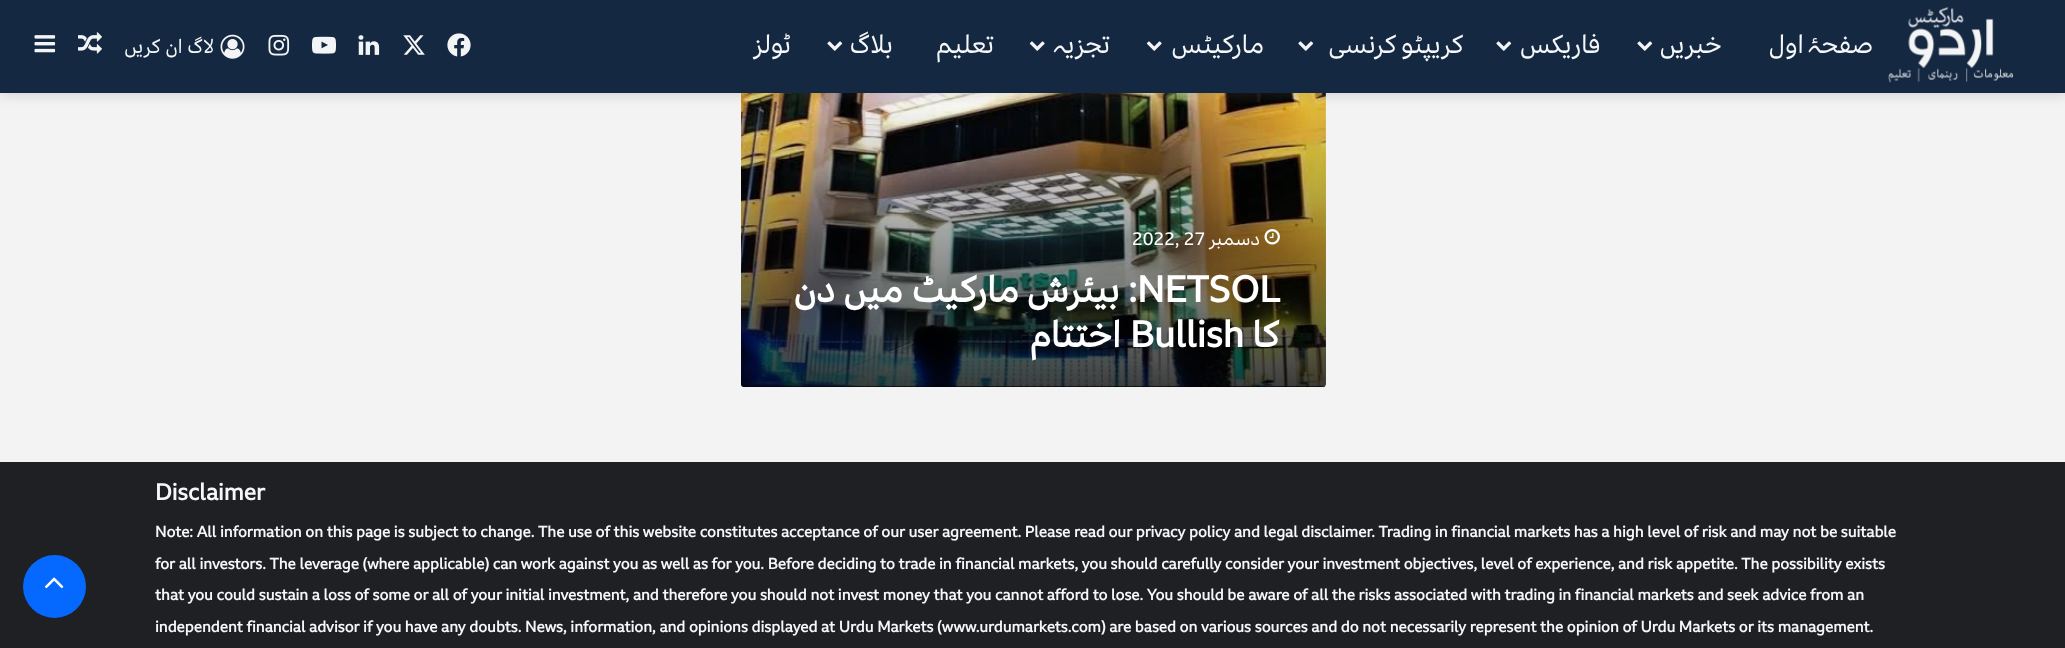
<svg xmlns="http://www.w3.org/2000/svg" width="2065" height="648">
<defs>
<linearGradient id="g1" gradientUnits="userSpaceOnUse" x1="1034" y1="94" x2="1034" y2="387"><stop offset="0" stop-color="#000" stop-opacity="0"/><stop offset="1" stop-color="#000" stop-opacity="0.75"/></linearGradient>
</defs>
<rect width="100%" height="100%" fill="#f3f3f3"/>
<image x="741" y="93" width="585" height="294" href="media/12.png"/>
<path d="M741 95h585v289c0 1.5-1.5 3-3 3h-579c-1.5 0-3-1.5-3-3z" fill="url(#g1)"/>
<rect y="3" width="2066" height="93" fill="#63636333" filter="blur(6px)"/>
<rect width="2065" height="93" fill="#152841"/>
<image x="34" y="35" width="22" height="18" href="media/1.png"/>
<image x="78" y="32" width="24" height="22" href="media/2.png"/>
<text x="214" y="53" style="font-family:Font;font-size:19.5px;direction:rtl;fill:#f6f7f8">لاگ ان کریں</text>
<image x="220" y="34" width="25" height="25" href="media/3.png"/>
<image x="268" y="34" width="22" height="22" href="media/4.png"/>
<image x="312" y="36" width="24" height="18" href="media/5.png"/>
<image x="358" y="35" width="22" height="20" href="media/6.png"/>
<image x="403" y="35" width="22" height="20" href="media/7.png"/>
<image x="447" y="33" width="24" height="24" href="media/8.png"/>
<text x="791" y="53" style="font-family:Font;font-size:25.5px;letter-spacing:0.9px;direction:rtl;fill:#f6f7f8">ٹولز</text>
<image x="827" y="41" width="16" height="10" href="media/9.png"/>
<text x="893" y="53" style="font-family:Font;font-size:25.5px;letter-spacing:0.9px;direction:rtl;fill:#f6f7f8">بلاگ</text>
<text x="994" y="53" style="font-family:Font;font-size:25.5px;letter-spacing:0.9px;direction:rtl;fill:#f6f7f8">تعلیم</text>
<image x="1029" y="41" width="16" height="10" href="media/10.png"/>
<text x="1110" y="53" style="font-family:Font;font-size:25.5px;letter-spacing:0.9px;direction:rtl;fill:#f6f7f8">تجزیہ</text>
<image x="1146" y="41" width="16" height="10" href="media/10.png"/>
<text x="1264" y="53" style="font-family:Font;font-size:25.5px;letter-spacing:0.9px;direction:rtl;fill:#f6f7f8">مارکیٹس</text>
<image x="1298" y="41" width="16" height="10" href="media/9.png"/>
<text x="1464" y="53" word-spacing="-2" style="font-family:Font;font-size:25.5px;letter-spacing:0.9px;direction:rtl;fill:#f6f7f8">کریپٹو کرنسی</text>
<image x="1496" y="41" width="16" height="10" href="media/9.png"/>
<text x="1601" y="53" style="font-family:Font;font-size:25.5px;letter-spacing:0.9px;direction:rtl;fill:#f6f7f8">فاریکس</text>
<image x="1637" y="41" width="16" height="10" href="media/9.png"/>
<text x="1722" y="53" style="font-family:Font;font-size:25.5px;letter-spacing:0.9px;direction:rtl;fill:#f6f7f8">خبریں</text>
<text x="1873" y="53" word-spacing="-2" style="font-family:Font;font-size:25.5px;letter-spacing:0.9px;direction:rtl;fill:#f6f7f8">صفحۂ اول</text>
<image x="1888" y="7" width="125" height="76" href="media/11.png"/>
<text x="1132" y="245" style="font-family:Font;font-size:18px;fill:#fff">2022, 27</text>
<text x="1260" y="245" style="font-family:Font;font-size:18px;direction:rtl;fill:#fff">دسمبر</text>
<image x="1264" y="229" width="16" height="16" href="media/13.png"/>
<text x="1137" y="302" style="font-family:Font;font-size:36px;font-weight:bold;direction:rtl;fill:#fff">: بیئرش مارکیٹ میں دن</text>
<text x="1137" y="302" style="font-family:Font;font-size:36px;font-weight:bold;fill:#fff">NETSOL</text>
<text x="1121" y="347" style="font-family:Font;font-size:36px;font-weight:bold;direction:rtl;fill:#fff">اختتام</text>
<text x="1130" y="347" style="font-family:Font;font-size:36px;font-weight:bold;fill:#fff">Bullish</text>
<text x="1280" y="347" style="font-family:Font;font-size:36px;font-weight:bold;direction:rtl;fill:#fff">کا</text>
<rect y="462" width="2065" height="186" fill="#1f2024"/>
<circle cx="54.5" cy="586.5" r="31.5" fill="#0669ff"/>
<image x="44" y="577" width="20" height="12" href="media/14.png"/>
<text x="155" y="500" style="font-family:Font;font-size:22.5px;font-weight:bold;fill:#f6f7f8">Disclaimer</text>
<text x="155" y="537" style="font-family:Font;font-size:15px;font-weight:bold;fill:#f6f7f8">Note: All information on this page is subject to change. The use of this website constitutes acceptance of our user agreement. Please read our privacy policy and legal disclaimer. Trading in financial markets has a high level of risk and may not be suitable</text>
<text x="155" y="569" style="font-family:Font;font-size:15px;font-weight:bold;fill:#f6f7f8">for all investors. The leverage (where applicable) can work against you as well as for you. Before deciding to trade in financial markets, you should carefully consider your investment objectives, level of experience, and risk appetite. The possibility exists</text>
<text x="155" y="600" style="font-family:Font;font-size:15px;font-weight:bold;fill:#f6f7f8">that you could sustain a loss of some or all of your initial investment, and therefore you should not invest money that you cannot afford to lose. You should be aware of all the risks associated with trading in financial markets and seek advice from an</text>
<text x="155" y="632" style="font-family:Font;font-size:15px;font-weight:bold;fill:#f6f7f8">independent financial advisor if you have any doubts. News, information, and opinions displayed at Urdu Markets (www.urdumarkets.com) are based on various sources and do not necessarily represent the opinion of Urdu Markets or its management.</text>
</svg>
